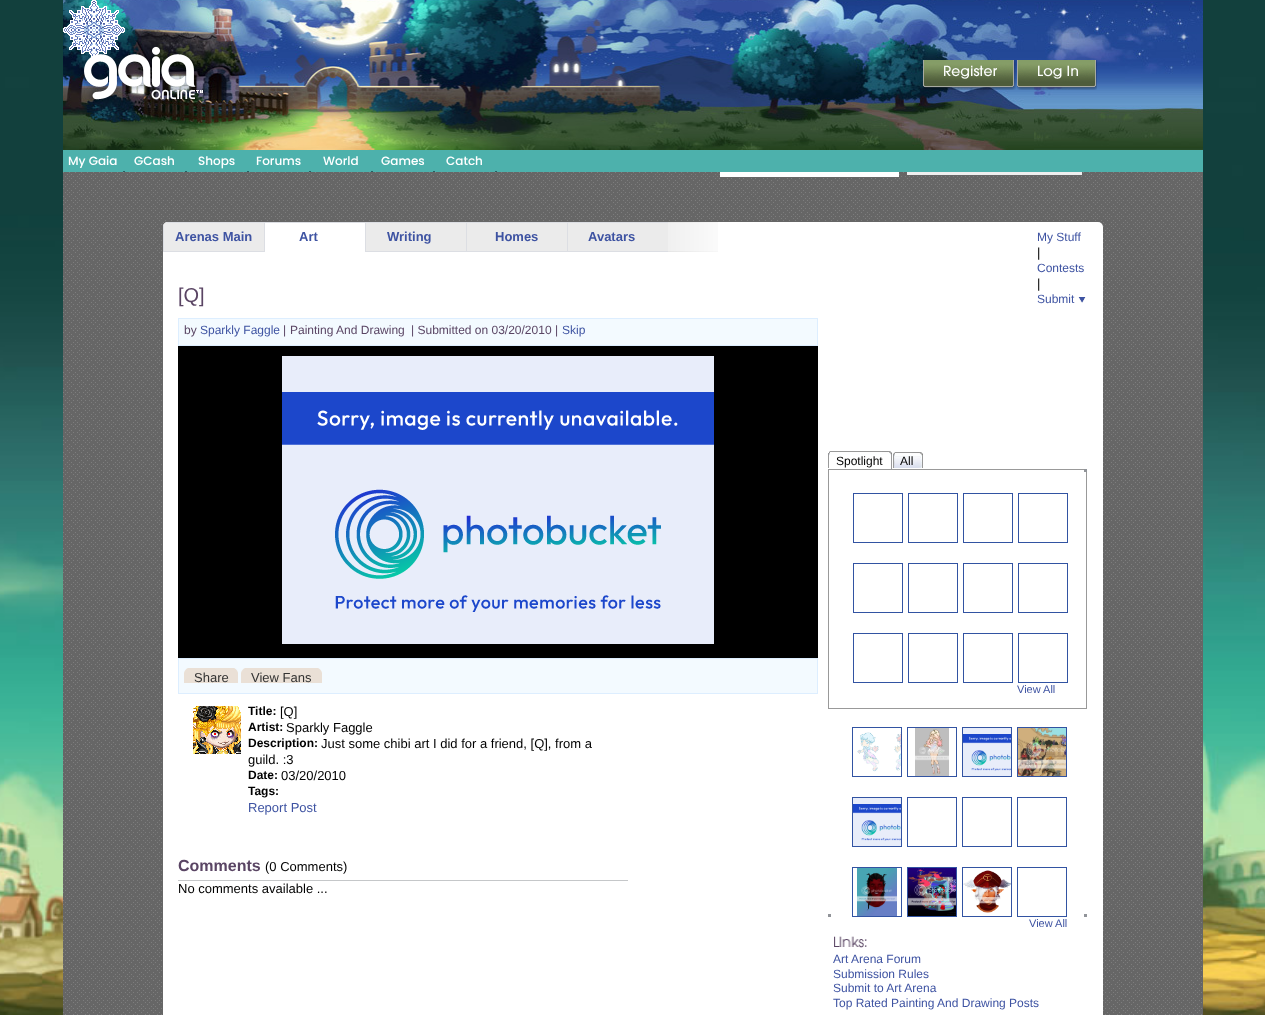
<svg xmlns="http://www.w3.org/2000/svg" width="1265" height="1015">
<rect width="100%" height="100%" fill="#12403d"/>
<image x="0" y="61" width="1265" height="954" href="media/1.png"/>
<image x="1034" y="0" width="169" height="150" href="media/2.png"/>
<image x="63" y="0" width="971" height="150" href="media/3.png"/>
<image x="63" y="0" width="62" height="58" href="media/4.png"/>
<image x="84" y="46" width="119" height="54" href="media/5.png"/>
<image x="923" y="60" width="93" height="30" href="media/6.png"/>
<image x="1017" y="60" width="80" height="30" href="media/7.png"/>
<rect x="63" y="150" width="1140" height="22" fill="#4db1ac"/>
<text x="68" y="165" style="font-family:Poppins;font-size:12px;font-weight:500;fill:#fff">My Gaia</text>
<text x="134" y="165" style="font-family:Poppins;font-size:12px;font-weight:500;fill:#fff">GCash</text>
<text x="198" y="165" style="font-family:Poppins;font-size:12px;font-weight:500;fill:#fff">Shops</text>
<text x="256" y="165" style="font-family:Poppins;font-size:12px;font-weight:500;fill:#fff">Forums</text>
<text x="323" y="165" style="font-family:Poppins;font-size:12px;font-weight:500;fill:#fff">World</text>
<text x="381" y="165" style="font-family:Poppins;font-size:12px;font-weight:500;fill:#fff">Games</text>
<text x="446" y="165" style="font-family:Poppins;font-size:12px;font-weight:500;fill:#fff">Catch</text>
<rect x="123" y="171" width="2" height="1" fill="#265f62"/>
<rect x="185" y="171" width="2" height="1" fill="#265f62"/>
<rect x="247" y="171" width="2" height="1" fill="#265f62"/>
<rect x="309" y="171" width="2" height="1" fill="#265f62"/>
<rect x="371" y="171" width="2" height="1" fill="#265f62"/>
<rect x="433" y="171" width="2" height="1" fill="#265f62"/>
<rect x="495" y="171" width="2" height="1" fill="#265f62"/>
<image x="63" y="172" width="1140" height="843" href="media/8.png"/>
<rect x="720" y="172" width="179" height="5" fill="#fff"/>
<rect x="907" y="172" width="175" height="3" fill="#efefef"/>
<image x="1092" y="172" width="7" height="1" href="media/9.png"/>
<rect x="163" y="222" width="940" height="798" rx="5" fill="#fff"/>
<path d="M168 222h97v30h-102v-25c0-3 2-5 5-5z" fill="#ebebeb"/>
<path d="M168 222l-3 1h99v28h-100v-27c-1 1-1 2-1 3v25h102v-30z" fill="#dcdee3"/>
<text x="175" y="241" style="font-family:Liberation Sans;font-size:13px;font-weight:bold;fill:#3e53a2">Arenas Main</text>
<rect x="264" y="222" width="102" height="1" fill="#dcdee3"/>
<text x="299" y="241" style="font-family:Liberation Sans;font-size:13px;font-weight:bold;fill:#3e53a2">Art</text>
<rect x="365.5" y="222.5" width="101" height="29" fill="#ebebeb" stroke="#dcdee3"/>
<text x="387" y="241" style="font-family:Liberation Sans;font-size:13px;font-weight:bold;fill:#3e53a2">Writing</text>
<rect x="466.5" y="222.5" width="101" height="29" fill="#ebebeb" stroke="#dcdee3"/>
<text x="495" y="241" style="font-family:Liberation Sans;font-size:13px;font-weight:bold;fill:#3e53a2">Homes</text>
<rect x="568" y="223" width="100" height="28" fill="#ebebeb"/>
<rect x="567" y="222" width="101" height="1" fill="#dcdee3"/>
<rect x="567" y="251" width="101" height="1" fill="#dcdee3"/>
<text x="588" y="241" style="font-family:Liberation Sans;font-size:13px;font-weight:bold;fill:#3e53a2">Avatars</text>
<image x="668" y="222" width="50" height="30" href="media/10.png"/>
<text x="178" y="302" style="font-family:Liberation Sans;font-size:20px;fill:#5a4564">[Q]</text>
<rect x="178.5" y="318.5" width="639" height="27" fill="#f3faff" stroke="#def"/>
<text x="184" y="334" style="font-family:Liberation Sans;font-size:12px;fill:#5a4564">by</text>
<text x="200" y="334" style="font-family:Liberation Sans;font-size:12px;fill:#3e53a2">Sparkly Faggle</text>
<text x="283" y="334" style="font-family:Liberation Sans;font-size:12px;fill:#5a4564">|</text>
<text x="290" y="334" style="font-family:Liberation Sans;font-size:12px;fill:#5a4564">Painting And Drawing</text>
<text x="411" y="334" style="font-family:Liberation Sans;font-size:12px;fill:#5a4564">| Submitted on 03/20/2010 |</text>
<text x="562" y="334" style="font-family:Liberation Sans;font-size:12px;fill:#3e53a2">Skip</text>
<rect x="178" y="346" width="640" height="312" fill="#000"/>
<image x="282" y="356" width="432" height="288" href="media/11.png"/>
<rect x="178.5" y="658.5" width="639" height="35" fill="#f3faff" stroke="#def"/>
<image x="217" y="668" width="21" height="15" href="media/12.png"/>
<image x="184" y="668" width="33" height="15" href="media/13.png"/>
<text x="194" y="682" style="font-family:Liberation Sans;font-size:13px;fill:#333">Share</text>
<image x="300" y="668" width="22" height="15" href="media/14.png"/>
<image x="241" y="668" width="59" height="15" href="media/15.png"/>
<text x="251" y="682" style="font-family:Liberation Sans;font-size:13px;fill:#333">View Fans</text>
<image x="193" y="706" width="48" height="48" href="media/16.png"/>
<text x="248" y="715" style="font-family:Liberation Sans;font-size:12px;font-weight:bold;fill:#000">Title:</text>
<text x="280" y="716" style="font-family:Liberation Sans;font-size:13px;fill:#000">[Q]</text>
<text x="248" y="731" style="font-family:Liberation Sans;font-size:12px;font-weight:bold;fill:#000">Artist:</text>
<text x="286" y="732" style="font-family:Liberation Sans;font-size:13px;fill:#000">Sparkly Faggle</text>
<text x="248" y="747" style="font-family:Liberation Sans;font-size:12px;font-weight:bold;fill:#000">Description:</text>
<text x="321" y="748" style="font-family:Liberation Sans;font-size:13px;fill:#000">Just some chibi art I did for a friend, [Q], from a</text>
<text x="248" y="764" style="font-family:Liberation Sans;font-size:13px;fill:#000">guild. :3</text>
<text x="248" y="779" style="font-family:Liberation Sans;font-size:12px;font-weight:bold;fill:#000">Date:</text>
<text x="281" y="780" style="font-family:Liberation Sans;font-size:13px;fill:#000">03/20/2010</text>
<text x="248" y="795" style="font-family:Liberation Sans;font-size:12px;font-weight:bold;fill:#000">Tags:</text>
<text x="248" y="812" style="font-family:Liberation Sans;font-size:13px;fill:#3e53a2">Report Post</text>
<text x="178" y="871" style="font-family:Liberation Sans;font-size:16px;font-weight:bold;fill:#5a4564">Comments</text>
<text x="265" y="871" style="font-family:Liberation Sans;font-size:13px;fill:#000">(0 Comments)</text>
<rect x="178" y="880" width="450" height="1" fill="#c5c7c9"/>
<text x="178" y="893" style="font-family:Liberation Sans;font-size:13px;fill:#000">No comments available ...</text>
<text x="1037" y="241" style="font-family:Liberation Sans;font-size:12px;fill:#3e53a2">My Stuff</text>
<text x="1037" y="257" style="font-family:Liberation Sans;font-size:13px;fill:#000">|</text>
<text x="1037" y="272" style="font-family:Liberation Sans;font-size:12px;fill:#3e53a2">Contests</text>
<text x="1037" y="288" style="font-family:Liberation Sans;font-size:13px;fill:#000">|</text>
<text x="1037" y="303" style="font-family:Liberation Sans;font-size:12px;fill:#3e53a2">Submit</text>
<image x="1078" y="297" width="8" height="6" href="media/17.png"/>
<image x="828" y="451" width="2" height="17" href="media/18.png"/>
<image x="830" y="451" width="62" height="18" href="media/19.png"/>
<image x="893" y="452" width="2" height="16" href="media/20.png"/>
<image x="895" y="452" width="28" height="16" href="media/21.png"/>
<text x="836" y="465" style="font-family:Liberation Sans;font-size:12px;fill:#000">Spotlight</text>
<text x="900" y="465" style="font-family:Liberation Sans;font-size:12px;fill:#000">All</text>
<rect x="828.5" y="469.5" width="258" height="239" fill="none" stroke="#999"/>
<rect x="1084" y="469" width="3" height="3" fill="#919499"/>
<rect x="853.5" y="493.5" width="49" height="49" fill="none" stroke="#3253a2"/>
<rect x="908.5" y="493.5" width="49" height="49" fill="none" stroke="#3253a2"/>
<rect x="963.5" y="493.5" width="49" height="49" fill="none" stroke="#3253a2"/>
<rect x="1018.5" y="493.5" width="49" height="49" fill="none" stroke="#3253a2"/>
<rect x="853.5" y="563.5" width="49" height="49" fill="none" stroke="#3253a2"/>
<rect x="908.5" y="563.5" width="49" height="49" fill="none" stroke="#3253a2"/>
<rect x="963.5" y="563.5" width="49" height="49" fill="none" stroke="#3253a2"/>
<rect x="1018.5" y="563.5" width="49" height="49" fill="none" stroke="#3253a2"/>
<rect x="853.5" y="633.5" width="49" height="49" fill="none" stroke="#3253a2"/>
<rect x="908.5" y="633.5" width="49" height="49" fill="none" stroke="#3253a2"/>
<rect x="963.5" y="633.5" width="49" height="49" fill="none" stroke="#3253a2"/>
<rect x="1018.5" y="633.5" width="49" height="49" fill="none" stroke="#3253a2"/>
<text x="1017" y="693" style="font-family:Liberation Sans;font-size:11px;fill:#3e53a2">View All</text>
<rect x="852.5" y="727.5" width="49" height="49" fill="none" stroke="#3253a2"/>
<image x="857" y="732" width="44" height="40" href="media/22.png"/>
<rect x="907.5" y="727.5" width="49" height="49" fill="none" stroke="#3253a2"/>
<image x="915" y="728" width="34" height="48" href="media/23.png"/>
<rect x="962.5" y="727.5" width="49" height="49" fill="none" stroke="#3253a2"/>
<image x="963" y="728" width="48" height="48" href="media/24.png"/>
<rect x="1017.5" y="727.5" width="49" height="49" fill="none" stroke="#3253a2"/>
<image x="1018" y="728" width="48" height="48" href="media/25.png"/>
<rect x="852.5" y="797.5" width="49" height="49" fill="none" stroke="#3253a2"/>
<image x="853" y="798" width="48" height="48" href="media/24.png"/>
<rect x="907.5" y="797.5" width="49" height="49" fill="none" stroke="#3253a2"/>
<rect x="962.5" y="797.5" width="49" height="49" fill="none" stroke="#3253a2"/>
<rect x="1017.5" y="797.5" width="49" height="49" fill="none" stroke="#3253a2"/>
<rect x="852.5" y="867.5" width="49" height="49" fill="none" stroke="#3253a2"/>
<image x="857" y="868" width="40" height="48" href="media/26.png"/>
<rect x="907.5" y="867.5" width="49" height="49" fill="none" stroke="#3253a2"/>
<image x="908" y="868" width="48" height="48" href="media/27.png"/>
<rect x="962.5" y="867.5" width="49" height="49" fill="none" stroke="#3253a2"/>
<image x="963" y="870" width="48" height="43" href="media/28.png"/>
<rect x="1017.5" y="867.5" width="49" height="49" fill="none" stroke="#3253a2"/>
<text x="1029" y="927" style="font-family:Liberation Sans;font-size:11px;fill:#3e53a2">View All</text>
<rect x="828" y="914" width="3" height="3" fill="#919499"/>
<rect x="1084" y="914" width="3" height="3" fill="#919499"/>
<image x="834" y="936" width="33" height="12" href="media/29.png"/>
<text x="833" y="963" style="font-family:Liberation Sans;font-size:12px;fill:#3e53a2">Art Arena Forum</text>
<text x="833" y="978" style="font-family:Liberation Sans;font-size:12px;fill:#3e53a2">Submission Rules</text>
<text x="833" y="992" style="font-family:Liberation Sans;font-size:12px;fill:#3e53a2">Submit to Art Arena</text>
<text x="833" y="1007" style="font-family:Liberation Sans;font-size:12px;fill:#3e53a2">Top Rated Painting And Drawing Posts</text>
</svg>
